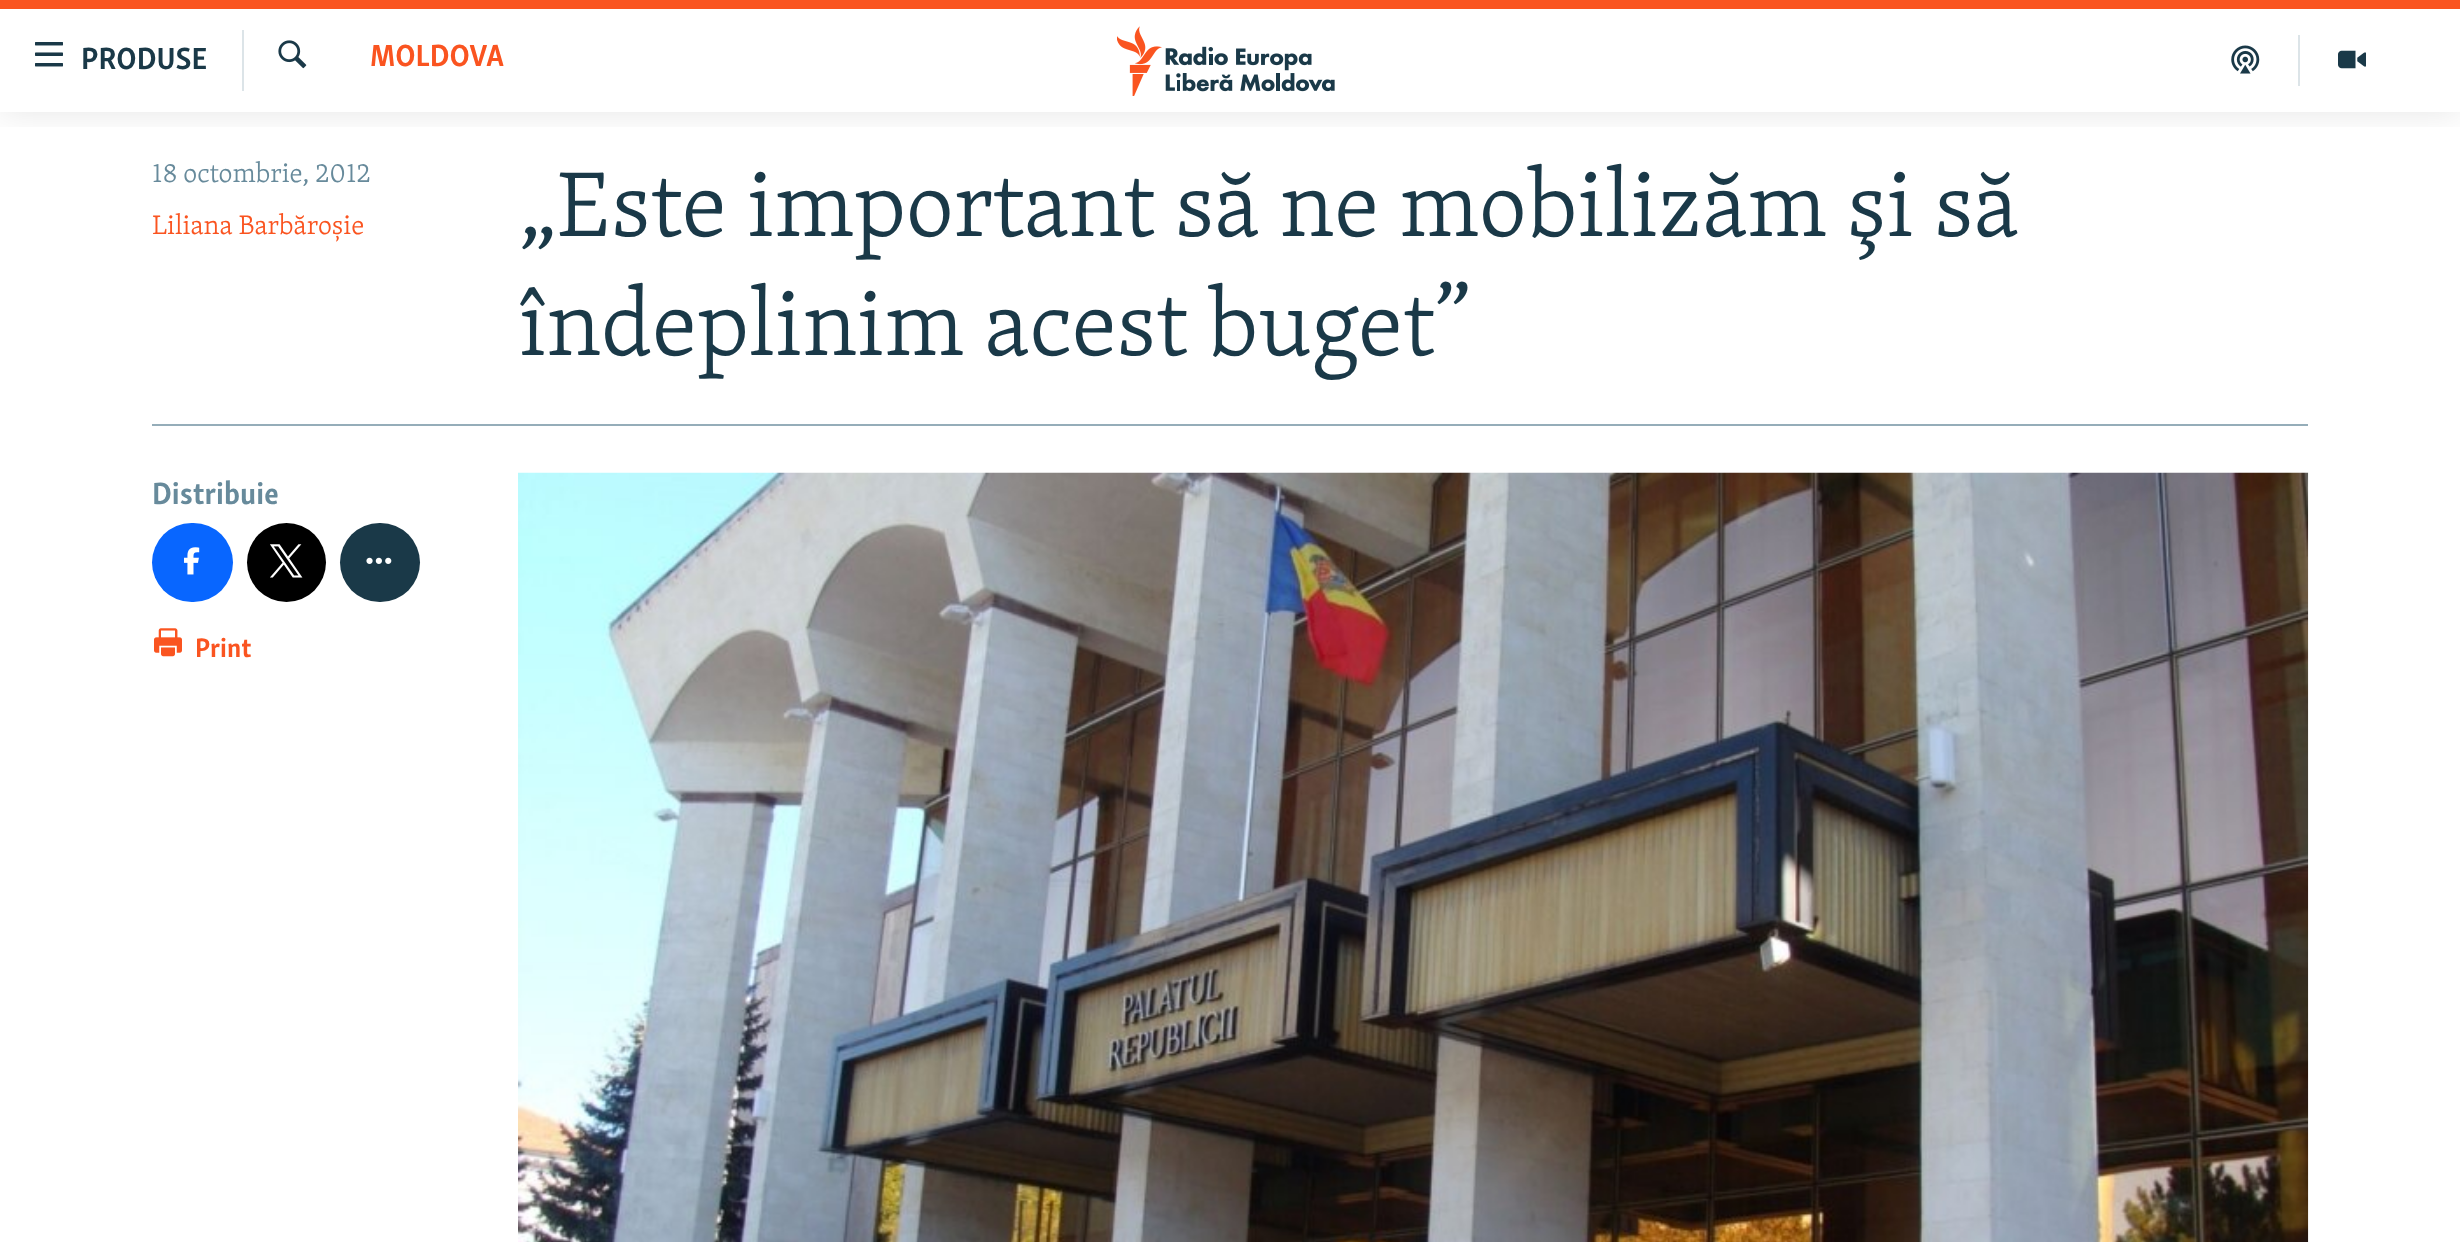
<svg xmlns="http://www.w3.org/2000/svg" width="2460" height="1242">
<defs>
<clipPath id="clip1"><rect x="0" y="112" width="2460" height="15"/></clipPath>
</defs>
<rect width="100%" height="100%" fill="#fff"/>
<g clip-path="url(#clip1)">
<rect width="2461" height="112" fill="#0000001a" filter="blur(17.5px)"/>
</g>
<rect width="2460" height="9" fill="#fa5420"/>
<image x="35" y="42" width="28" height="25" href="media/1.png"/>
<text x="81" y="69" style="font-family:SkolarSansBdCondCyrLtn;font-size:31.5px;font-weight:bold;fill:#1a3948">PRODUSE</text>
<rect x="242" y="30" width="2" height="61" fill="#dce4e8"/>
<image x="278" y="40" width="29" height="29" href="media/2.png"/>
<text x="370" y="66" style="font-family:SkolarSansBdCondCyrLtn;font-size:31.5px;font-weight:bold;fill:#fa5420">MOLDOVA</text>
<image x="1117" y="26" width="218" height="70" href="media/3.png"/>
<rect x="2298" y="35" width="2" height="51" fill="#dce4e8"/>
<image x="2231" y="45" width="29" height="29" href="media/4.png"/>
<image x="2338" y="50" width="28" height="19" href="media/5.png"/>
<text x="152" y="182" style="font-family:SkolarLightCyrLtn;font-size:27.5px;font-weight:300;fill:#678a9b">18 octombrie, 2012</text>
<text x="152" y="234" style="font-family:SkolarLightCyrLtn;font-size:27.5px;font-weight:300;fill:#fa5420">Liliana Barbăroșie</text>
<text x="519" y="236" style="font-family:SkolarLightCyrLtn;font-size:94.5px;font-weight:300;fill:#1a3948">„Este important să ne mobilizăm şi să</text>
<text x="519" y="355" style="font-family:SkolarLightCyrLtn;font-size:94.5px;font-weight:300;fill:#1a3948">îndeplinim acest buget”</text>
<rect x="152" y="424" width="2156" height="2" fill="#95adb9"/>
<text x="152" y="504" style="font-family:SkolarSansBdCondCyrLtn;font-size:31.5px;font-weight:bold;fill:#678a9b">Distribuie</text>
<rect x="152" y="523" width="81" height="79" rx="39.5" fill="#0866ff"/>
<image x="184" y="547" width="16" height="28" href="media/6.png"/>
<circle cx="286.5" cy="562.5" r="39.5" fill="#000"/>
<image x="270" y="544" width="33" height="34" href="media/7.png"/>
<rect x="340" y="523" width="80" height="79" rx="39.5" fill="#1a3948"/>
<image x="366" y="557" width="26" height="7" href="media/8.png"/>
<image x="154" y="628" width="28" height="29" href="media/9.png"/>
<text x="195" y="657" style="font-family:SkolarSansBdCondCyrLtn;font-size:27.5px;font-weight:bold;fill:#fa5420">Print</text>
<image x="518" y="472" width="1791" height="770" href="media/10.png"/>
</svg>
